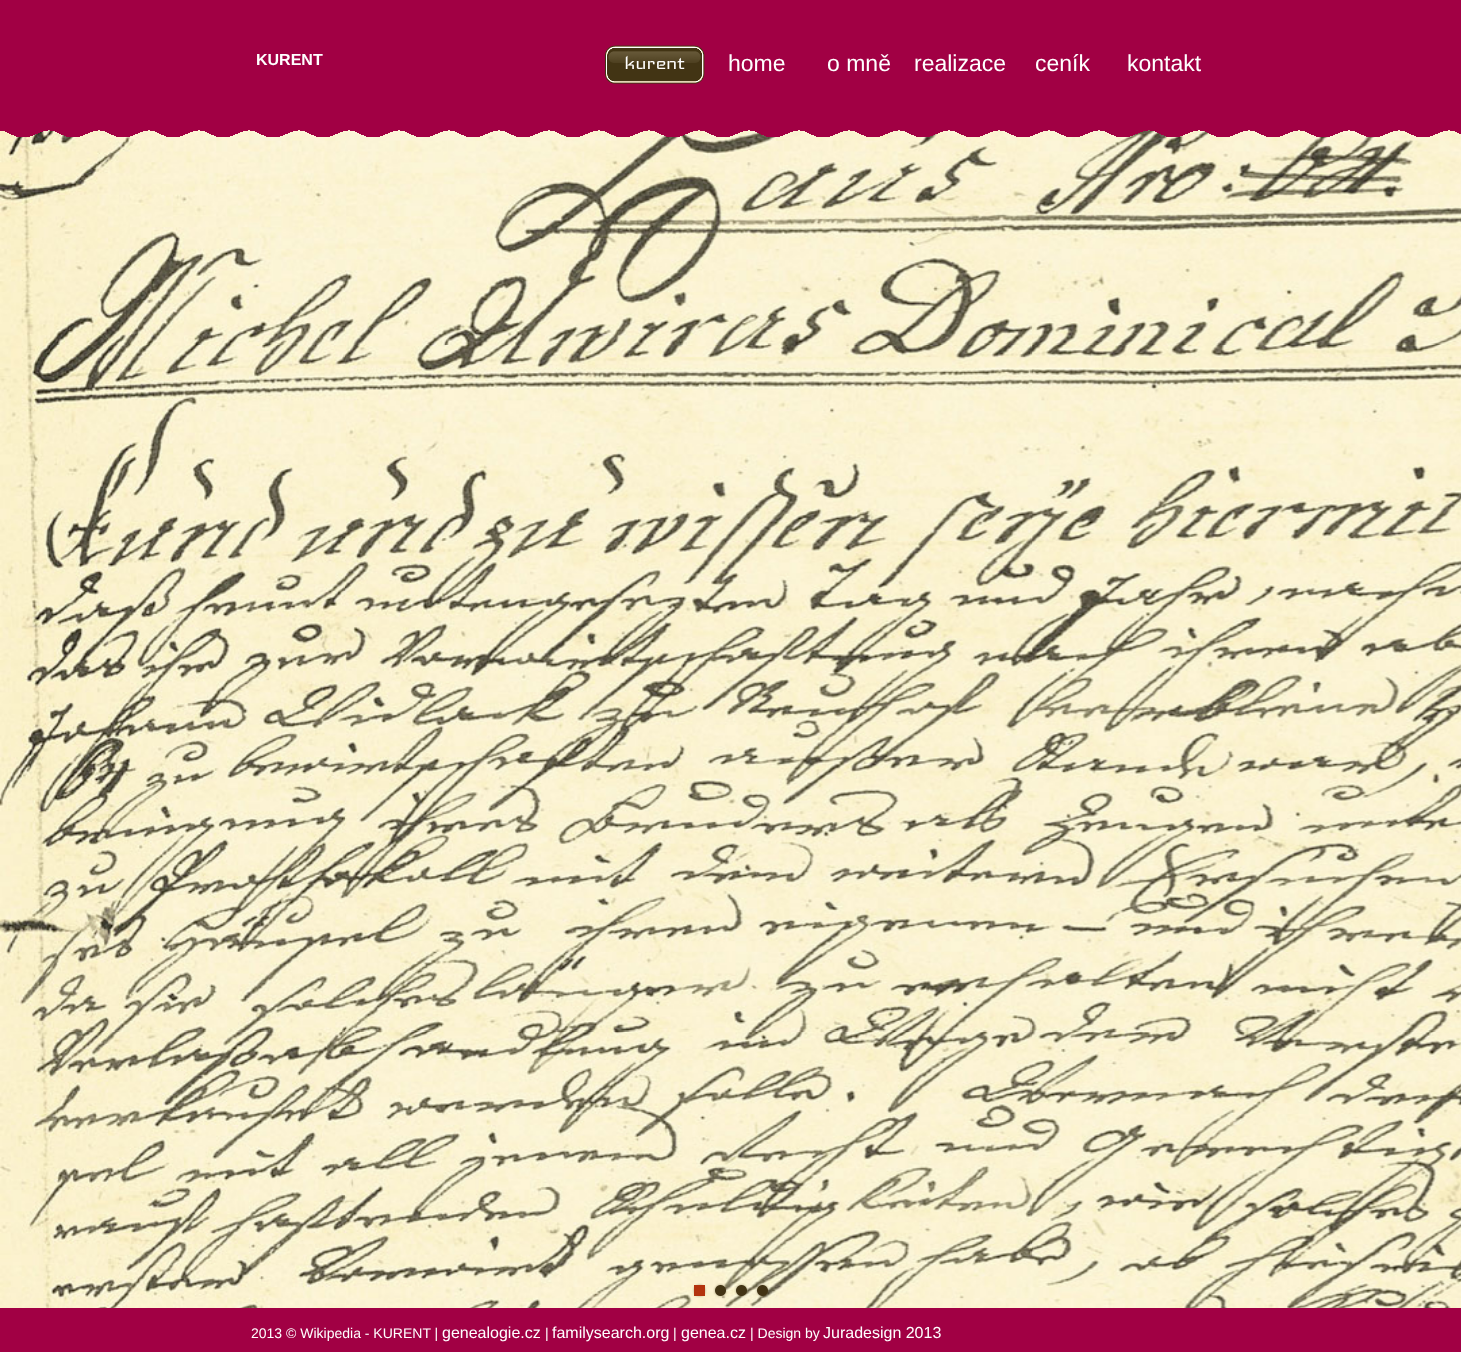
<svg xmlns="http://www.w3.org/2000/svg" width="1461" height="1352">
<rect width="100%" height="100%" fill="#fff"/>
<rect width="1461" height="130" fill="#a10044"/>
<image x="0" y="130" width="1461" height="1178" href="media/3.png"/>
<image x="0" y="130" width="1461" height="7" href="media/1.png"/>
<text x="256" y="65" style="font-family:Liberation Sans;font-size:16px;font-weight:bold;fill:#fff">KURENT</text>
<image x="605" y="45" width="100" height="39" href="media/2.png"/>
<text x="624" y="69" style="font-family:Iceland;font-size:23px;fill:#fff">kurent</text>
<text x="728" y="71" style="font-family:Liberation Sans;font-size:23px;fill:#fff">home</text>
<text x="827" y="71" style="font-family:Liberation Sans;font-size:23px;fill:#fff">o mně</text>
<text x="914" y="71" style="font-family:Liberation Sans;font-size:23px;fill:#fff">realizace</text>
<text x="1035" y="71" style="font-family:Liberation Sans;font-size:23px;fill:#fff">ceník</text>
<text x="1127" y="71" style="font-family:Liberation Sans;font-size:23px;fill:#fff">kontakt</text>
<image x="692" y="1283" width="15" height="15" href="media/4.png"/>
<rect x="694" y="1285" width="11" height="11" fill="#b3330d"/>
<image x="713" y="1283" width="15" height="15" href="media/5.png"/>
<image x="734" y="1283" width="15" height="15" href="media/6.png"/>
<image x="755" y="1283" width="15" height="15" href="media/7.png"/>
<rect y="1308" width="1461" height="44" fill="#a10044"/>
<text x="251" y="1338" style="font-family:Liberation Sans;font-size:14px;fill:#fff">2013 © Wikipedia - KURENT |</text>
<text x="442" y="1338" style="font-family:Liberation Sans;font-size:16px;fill:#fff">genealogie.cz</text>
<text x="545" y="1338" style="font-family:Liberation Sans;font-size:14px;fill:#fff">|</text>
<text x="552" y="1338" style="font-family:Liberation Sans;font-size:16px;fill:#fff">familysearch.org</text>
<text x="673" y="1338" style="font-family:Liberation Sans;font-size:14px;fill:#fff">|</text>
<text x="681" y="1338" style="font-family:Liberation Sans;font-size:16px;fill:#fff">genea.cz</text>
<text x="750" y="1338" style="font-family:Liberation Sans;font-size:14px;fill:#fff">| Design by</text>
<text x="823" y="1338" style="font-family:Liberation Sans;font-size:16px;fill:#fff">Juradesign 2013</text>
</svg>
